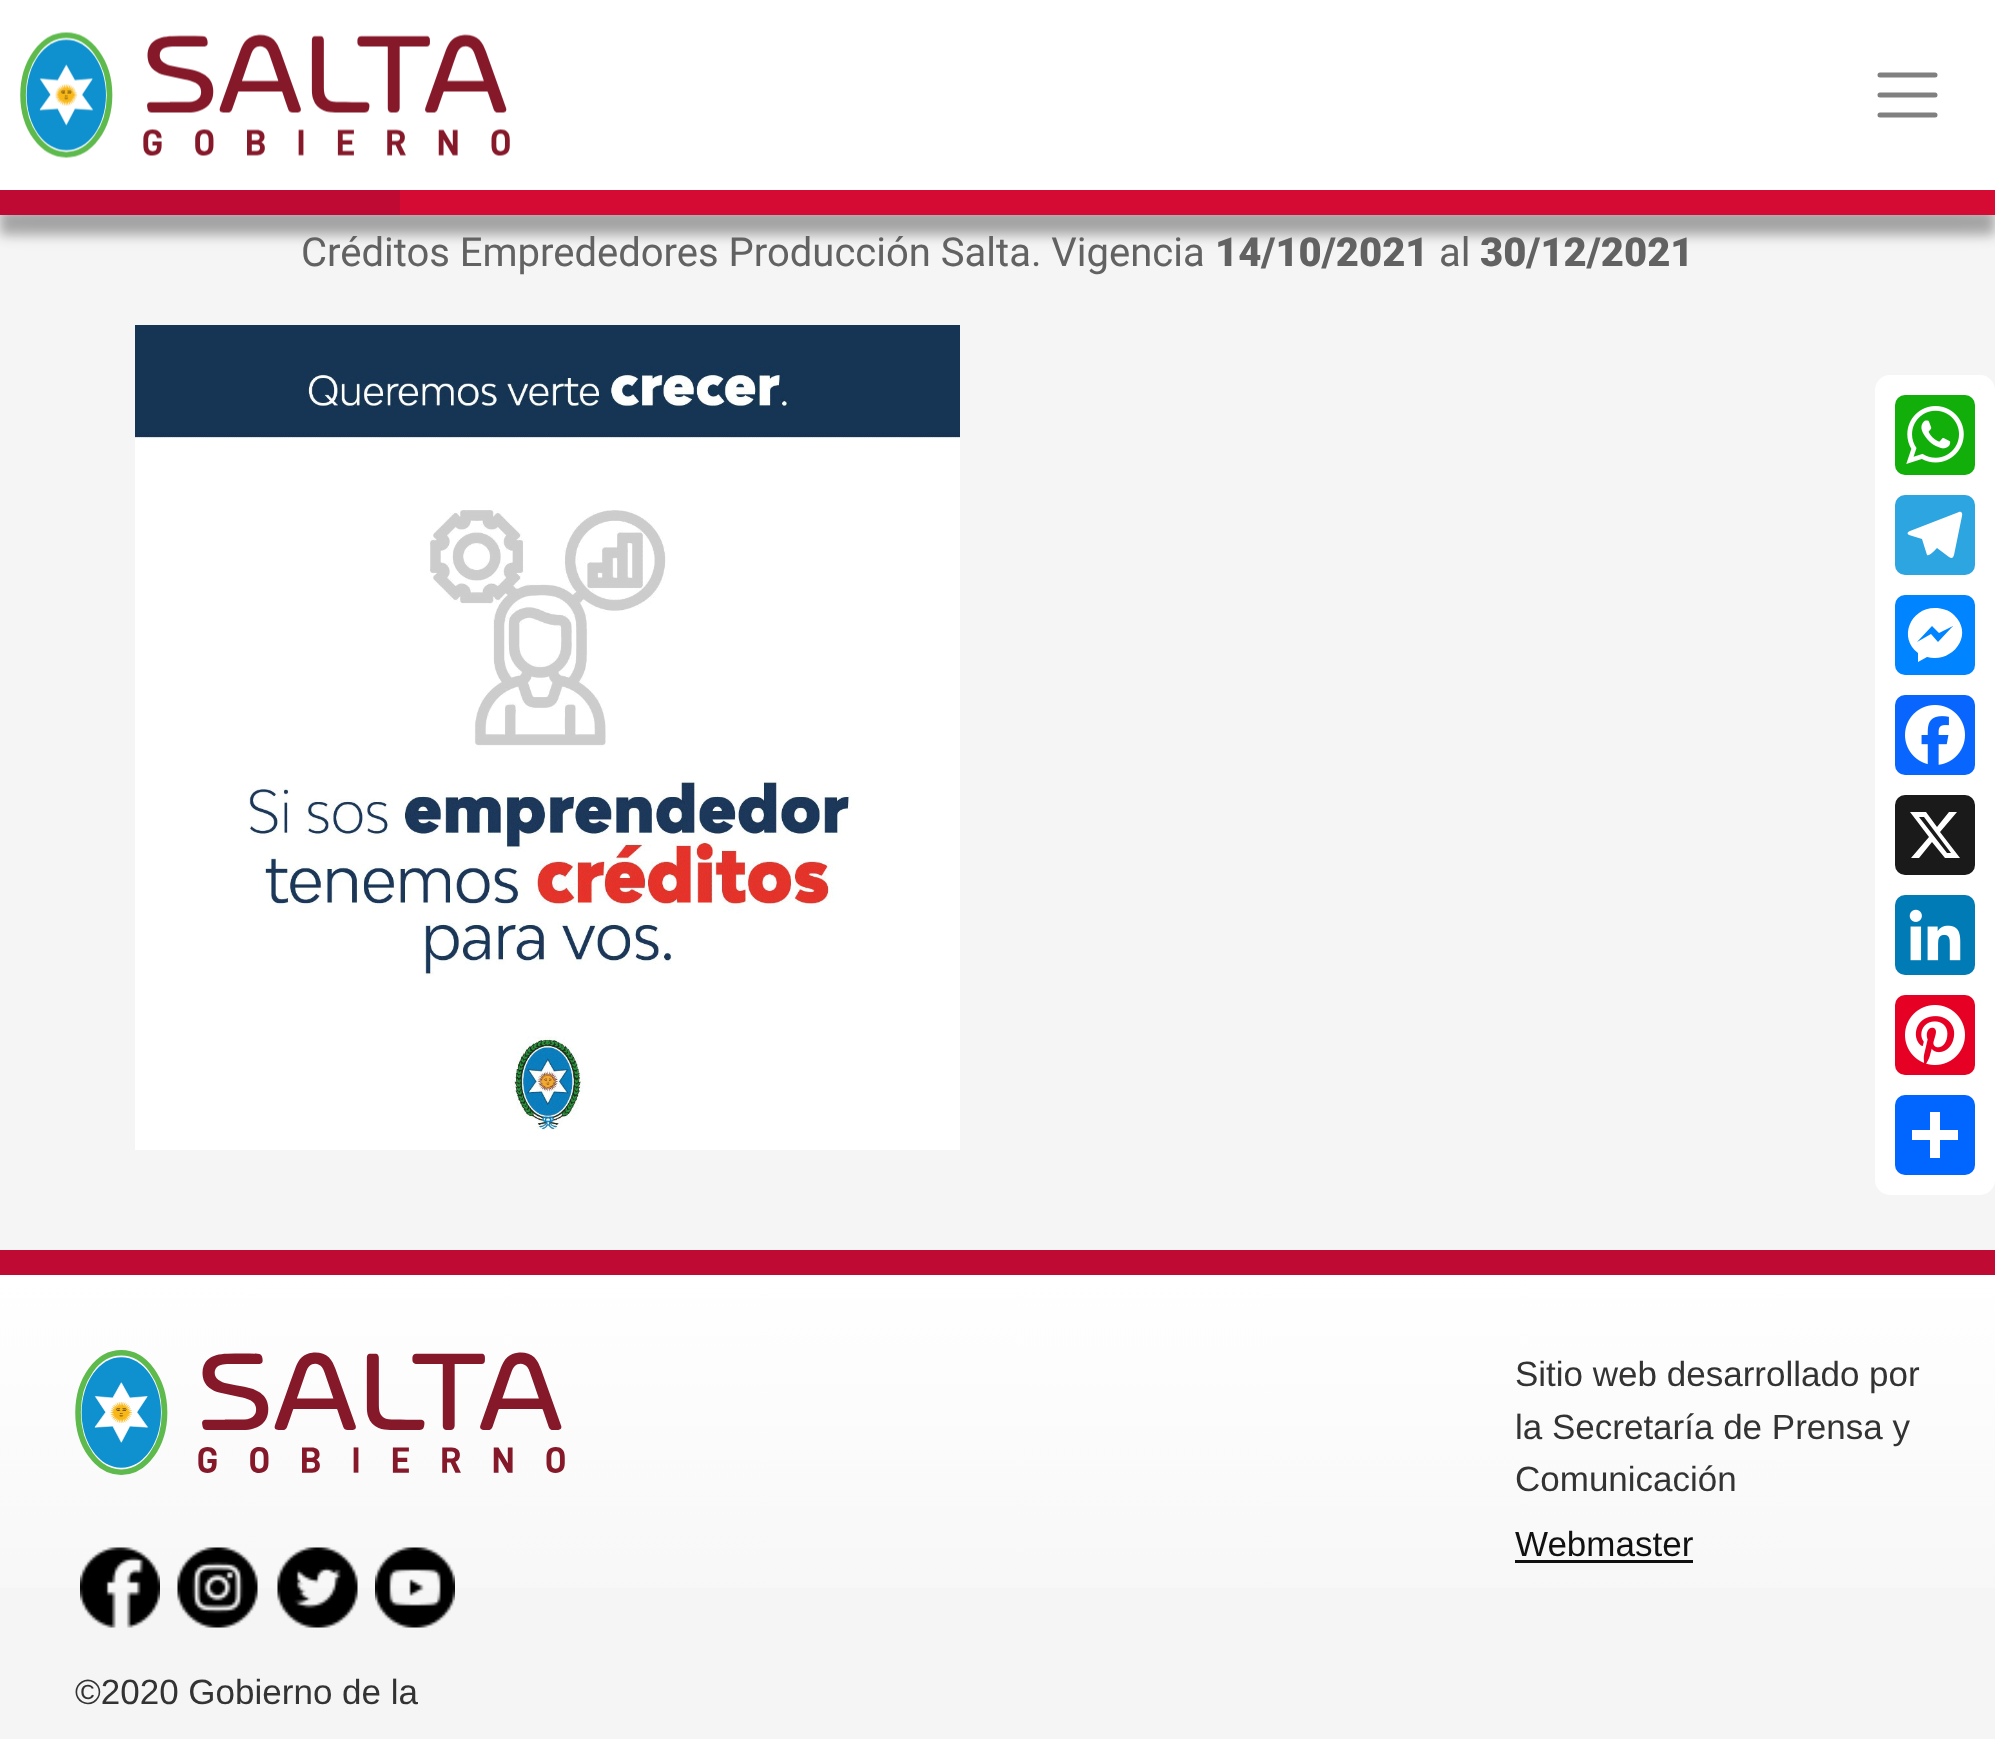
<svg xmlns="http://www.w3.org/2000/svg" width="1995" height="1739">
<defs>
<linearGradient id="g1" gradientUnits="userSpaceOnUse" x1="998" y1="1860" x2="998" y2="1275"><stop offset="0" stop-color="#f1f1f1"/><stop offset="1" stop-color="#fff"/></linearGradient>
</defs>
<rect width="100%" height="100%" fill="#f5f5f5"/>
<rect y="20" width="1995" height="190" fill="#00000026" filter="blur(20px)"/>
<rect width="1995" height="190" fill="#fff"/>
<image x="20" y="32" width="490" height="126" href="media/1.png"/>
<path d="M1880 75h55m-55 20h55m-55 20h55" fill="none" stroke="#808080" stroke-width="5" stroke-linecap="round"/>
<rect y="210" width="1995" height="25" fill="#0000004d" filter="blur(6px)"/>
<rect y="190" width="400" height="25" fill="#bf0b34"/>
<rect x="400" y="190" width="1595" height="25" fill="#d50b34"/>
<text x="301" y="266" style="font-family:Roboto;font-size:40px;fill:#626262">Créditos Emprededores Producción Salta. Vigencia</text>
<text x="1215" y="266" style="font-family:Roboto;font-size:40px;font-weight:900;fill:#626262">14/10/2021</text>
<text x="1439" y="266" style="font-family:Roboto;font-size:40px;fill:#626262">al</text>
<text x="1480" y="266" style="font-family:Roboto;font-size:40px;font-weight:900;fill:#626262">30/12/2021</text>
<image x="135" y="325" width="825" height="825" href="media/2.png"/>
<rect x="1875" y="375" width="120" height="820" rx="15" fill="#fff"/>
<rect x="1895" y="395" width="80" height="80" rx="10" fill="#12af0a"/>
<image x="1906" y="406" width="58" height="58" href="media/3.png"/>
<rect x="1895" y="495" width="80" height="80" rx="10" fill="#2ca5e0"/>
<path d="M1959 512l-49 19c-3 1-3 3-1 4l13 4l5 16c2 2 9-6 10-7l12 9c3 2 4 1 5-2l8-39c1-3-1-5-3-4z" fill="#fff"/>
<rect x="1895" y="595" width="80" height="80" rx="10" fill="#0084ff"/>
<path d="M1935 608c-25 0-37 30-17 45v9l9-5c25 7 48-22 27-42c-5-5-12-7-19-7m3 34l-7-8l-14 8l15-16l7 7l14-7z" fill="#fff"/>
<rect x="1895" y="695" width="80" height="80" rx="10" fill="#0866ff"/>
<image x="1905" y="705" width="60" height="60" href="media/4.png"/>
<rect x="1895" y="795" width="80" height="80" rx="10" fill="#1a1a1a"/>
<path d="M1949 812h8l-17 20l20 26h-15l-13-16l-13 16h-8l18-21l-19-25h16l11 15zm-2 41h4l-27-36h-5z" fill="#fff"/>
<rect x="1895" y="895" width="80" height="80" rx="10" fill="#007bb5"/>
<image x="1909" y="909" width="52" height="52" href="media/5.png"/>
<rect x="1895" y="995" width="80" height="80" rx="10" fill="#e60023"/>
<image x="1905" y="1005" width="60" height="60" href="media/6.png"/>
<rect x="1895" y="1095" width="80" height="80" rx="10" fill="#0166ff"/>
<rect x="1930" y="1112" width="10" height="46" fill="#fff"/>
<rect x="1912" y="1130" width="46" height="10" fill="#fff"/>
<rect y="1275" width="1995" height="313" fill="url(#g1)"/>
<rect y="1250" width="1995" height="25" fill="#bf0b34"/>
<text x="1515" y="1386" style="font-family:Liberation Sans;font-size:35px;fill:#333">Sitio web desarrollado por</text>
<text x="1515" y="1439" style="font-family:Liberation Sans;font-size:35px;fill:#333">la Secretaría de Prensa y</text>
<text x="1515" y="1491" style="font-family:Liberation Sans;font-size:35px;fill:#333">Comunicación</text>
<text x="1515" y="1556" style="font-family:Liberation Sans;font-size:35px;fill:#111">Webmaster</text>
<rect x="1515" y="1560" width="178" height="3" fill="#111"/>
<image x="75" y="1350" width="490" height="125" href="media/7.png"/>
<image x="80" y="1547" width="80" height="81" href="media/8.png"/>
<image x="177" y="1547" width="81" height="81" href="media/9.png"/>
<image x="277" y="1547" width="81" height="81" href="media/10.png"/>
<image x="375" y="1547" width="80" height="81" href="media/11.png"/>
<text x="75" y="1704" style="font-family:Liberation Sans;font-size:35px;fill:#333">©2020 Gobierno de la</text>
</svg>
